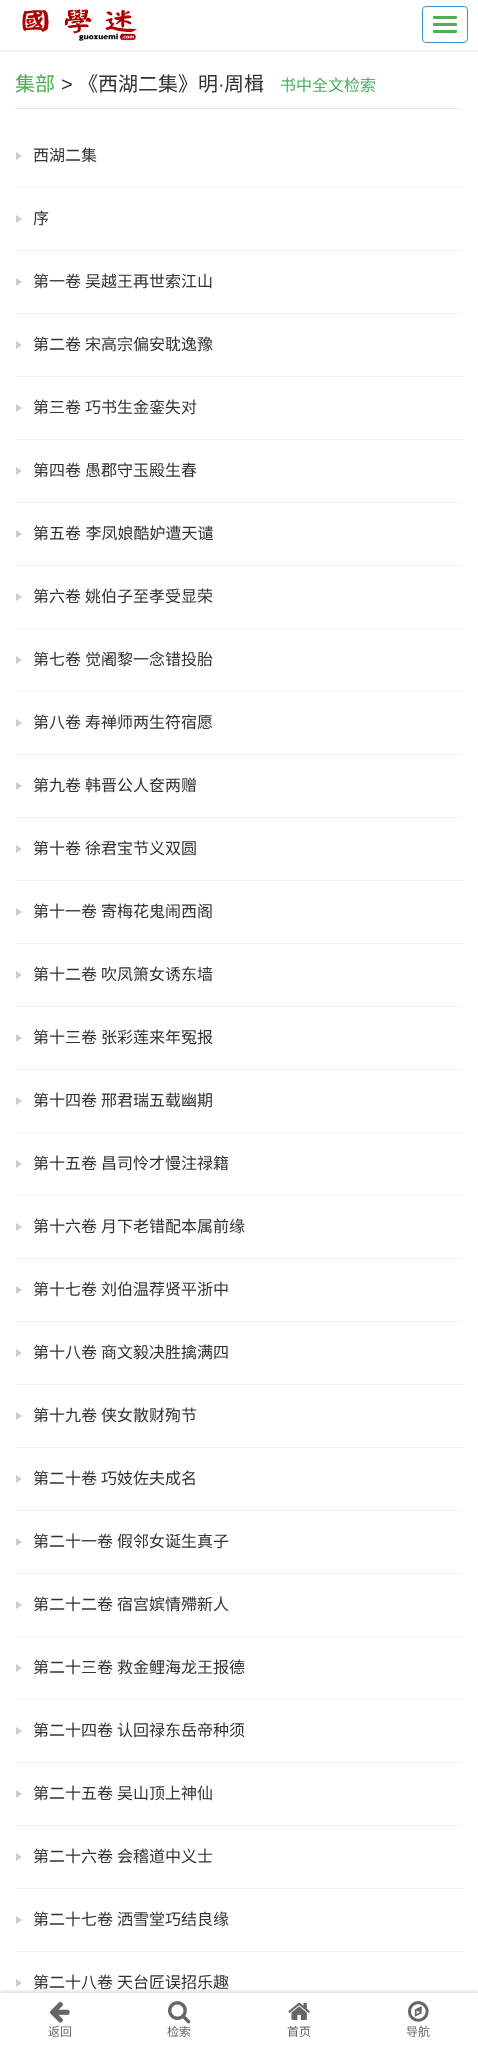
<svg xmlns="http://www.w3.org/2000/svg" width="478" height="2053">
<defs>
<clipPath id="clip1"><rect x="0" y="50" width="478" height="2"/></clipPath>
</defs>
<rect width="100%" height="100%" fill="#fff"/>
<g clip-path="url(#clip1)">
<rect x="-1" y="-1" width="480" height="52" fill="#0000001a" filter="blur(1.5px)"/>
</g>
<image x="22" y="9" width="115" height="32" href="media/1.png"/>
<rect x="422.5" y="6.5" width="45" height="36" rx="3.5" fill="none" stroke="#39c"/>
<rect x="433" y="16" width="24" height="3" rx="1" fill="#4caf50"/>
<rect x="433" y="23" width="24" height="3" rx="1" fill="#4caf50"/>
<rect x="433" y="30" width="24" height="3" rx="1" fill="#4caf50"/>
<rect x="15" y="108" width="448" height="1" fill="#ebebeb"/>
<text x="15" y="91" style="font-family:Noto Sans CJK SC;font-size:20px;fill:#4caf50">集部</text>
<text x="61" y="91" style="font-family:Liberation Sans;font-size:20px;fill:#333">&gt;</text>
<text x="78" y="91" style="font-family:Noto Sans CJK SC;font-size:20px;fill:#333">《西湖二集》明</text>
<text x="218" y="91" style="font-family:Liberation Sans;font-size:20px;fill:#333">·</text>
<text x="224" y="91" style="font-family:Noto Sans CJK SC;font-size:20px;fill:#333">周楫</text>
<text x="280" y="91" style="font-family:Noto Sans CJK SC;font-size:16px;fill:#4caf60">书中全文检索</text>
<rect x="15" y="187" width="448" height="1" fill="#f2f2f2"/>
<path d="M16 160v-8l6 4z" fill="#ccc"/>
<text x="33" y="161" style="font-family:Noto Sans CJK SC;font-size:16px;fill:#333">西湖二集</text>
<rect x="15" y="250" width="448" height="1" fill="#f2f2f2"/>
<path d="M16 223v-8l6 4z" fill="#ccc"/>
<text x="33" y="224" style="font-family:Noto Sans CJK SC;font-size:16px;fill:#333">序</text>
<rect x="15" y="313" width="448" height="1" fill="#f2f2f2"/>
<path d="M16 286v-8l6 4z" fill="#ccc"/>
<text x="33" y="287" style="font-family:Noto Sans CJK SC;font-size:16px;fill:#333">第一卷</text>
<text x="85" y="287" style="font-family:Noto Sans CJK SC;font-size:16px;fill:#333">吴越王再世索江山</text>
<rect x="15" y="376" width="448" height="1" fill="#f2f2f2"/>
<path d="M16 349v-8l6 4z" fill="#ccc"/>
<text x="33" y="350" style="font-family:Noto Sans CJK SC;font-size:16px;fill:#333">第二卷</text>
<text x="85" y="350" style="font-family:Noto Sans CJK SC;font-size:16px;fill:#333">宋高宗偏安耽逸豫</text>
<rect x="15" y="439" width="448" height="1" fill="#f2f2f2"/>
<path d="M16 412v-8l6 4z" fill="#ccc"/>
<text x="33" y="413" style="font-family:Noto Sans CJK SC;font-size:16px;fill:#333">第三卷</text>
<text x="85" y="413" style="font-family:Noto Sans CJK SC;font-size:16px;fill:#333">巧书生金銮失对</text>
<rect x="15" y="502" width="448" height="1" fill="#f2f2f2"/>
<path d="M16 475v-8l6 4z" fill="#ccc"/>
<text x="33" y="476" style="font-family:Noto Sans CJK SC;font-size:16px;fill:#333">第四卷</text>
<text x="85" y="476" style="font-family:Noto Sans CJK SC;font-size:16px;fill:#333">愚郡守玉殿生春</text>
<rect x="15" y="565" width="448" height="1" fill="#f2f2f2"/>
<path d="M16 538v-8l6 4z" fill="#ccc"/>
<text x="33" y="539" word-spacing="1" style="font-family:Noto Sans CJK SC;font-size:16px;fill:#333">第五卷 李凤娘酷妒遭天谴</text>
<rect x="15" y="628" width="448" height="1" fill="#f2f2f2"/>
<path d="M16 601v-8l6 4z" fill="#ccc"/>
<text x="33" y="602" style="font-family:Noto Sans CJK SC;font-size:16px;fill:#333">第六卷</text>
<text x="85" y="602" style="font-family:Noto Sans CJK SC;font-size:16px;fill:#333">姚伯子至孝受显荣</text>
<rect x="15" y="691" width="448" height="1" fill="#f2f2f2"/>
<path d="M16 664v-8l6 4z" fill="#ccc"/>
<text x="33" y="665" style="font-family:Noto Sans CJK SC;font-size:16px;fill:#333">第七卷</text>
<text x="85" y="665" style="font-family:Noto Sans CJK SC;font-size:16px;fill:#333">觉阇黎一念错投胎</text>
<rect x="15" y="754" width="448" height="1" fill="#f2f2f2"/>
<path d="M16 727v-8l6 4z" fill="#ccc"/>
<text x="33" y="728" style="font-family:Noto Sans CJK SC;font-size:16px;fill:#333">第八卷</text>
<text x="85" y="728" style="font-family:Noto Sans CJK SC;font-size:16px;fill:#333">寿禅师两生符宿愿</text>
<rect x="15" y="817" width="448" height="1" fill="#f2f2f2"/>
<path d="M16 790v-8l6 4z" fill="#ccc"/>
<text x="33" y="791" style="font-family:Noto Sans CJK SC;font-size:16px;fill:#333">第九卷</text>
<text x="85" y="791" style="font-family:Noto Sans CJK SC;font-size:16px;fill:#333">韩晋公人奁两赠</text>
<rect x="15" y="880" width="448" height="1" fill="#f2f2f2"/>
<path d="M16 853v-8l6 4z" fill="#ccc"/>
<text x="33" y="854" style="font-family:Noto Sans CJK SC;font-size:16px;fill:#333">第十卷</text>
<text x="85" y="854" style="font-family:Noto Sans CJK SC;font-size:16px;fill:#333">徐君宝节义双圆</text>
<rect x="15" y="943" width="448" height="1" fill="#f2f2f2"/>
<path d="M16 916v-8l6 4z" fill="#ccc"/>
<text x="33" y="917" style="font-family:Noto Sans CJK SC;font-size:16px;fill:#333">第十一卷</text>
<text x="101" y="917" style="font-family:Noto Sans CJK SC;font-size:16px;fill:#333">寄梅花鬼闹西阁</text>
<rect x="15" y="1006" width="448" height="1" fill="#f2f2f2"/>
<path d="M16 979v-8l6 4z" fill="#ccc"/>
<text x="33" y="980" style="font-family:Noto Sans CJK SC;font-size:16px;fill:#333">第十二卷</text>
<text x="101" y="980" style="font-family:Noto Sans CJK SC;font-size:16px;fill:#333">吹凤箫女诱东墙</text>
<rect x="15" y="1069" width="448" height="1" fill="#f2f2f2"/>
<path d="M16 1042v-8l6 4z" fill="#ccc"/>
<text x="33" y="1043" style="font-family:Noto Sans CJK SC;font-size:16px;fill:#333">第十三卷</text>
<text x="101" y="1043" style="font-family:Noto Sans CJK SC;font-size:16px;fill:#333">张彩莲来年冤报</text>
<rect x="15" y="1132" width="448" height="1" fill="#f2f2f2"/>
<path d="M16 1105v-8l6 4z" fill="#ccc"/>
<text x="33" y="1106" style="font-family:Noto Sans CJK SC;font-size:16px;fill:#333">第十四卷</text>
<text x="101" y="1106" style="font-family:Noto Sans CJK SC;font-size:16px;fill:#333">邢君瑞五载幽期</text>
<rect x="15" y="1195" width="448" height="1" fill="#f2f2f2"/>
<path d="M16 1168v-8l6 4z" fill="#ccc"/>
<text x="33" y="1169" style="font-family:Noto Sans CJK SC;font-size:16px;fill:#333">第十五卷</text>
<text x="101" y="1169" style="font-family:Noto Sans CJK SC;font-size:16px;fill:#333">昌司怜才慢注禄籍</text>
<rect x="15" y="1258" width="448" height="1" fill="#f2f2f2"/>
<path d="M16 1231v-8l6 4z" fill="#ccc"/>
<text x="33" y="1232" style="font-family:Noto Sans CJK SC;font-size:16px;fill:#333">第十六卷</text>
<text x="101" y="1232" style="font-family:Noto Sans CJK SC;font-size:16px;fill:#333">月下老错配本属前缘</text>
<rect x="15" y="1321" width="448" height="1" fill="#f2f2f2"/>
<path d="M16 1294v-8l6 4z" fill="#ccc"/>
<text x="33" y="1295" style="font-family:Noto Sans CJK SC;font-size:16px;fill:#333">第十七卷</text>
<text x="101" y="1295" style="font-family:Noto Sans CJK SC;font-size:16px;fill:#333">刘伯温荐贤平浙中</text>
<rect x="15" y="1384" width="448" height="1" fill="#f2f2f2"/>
<path d="M16 1357v-8l6 4z" fill="#ccc"/>
<text x="33" y="1358" style="font-family:Noto Sans CJK SC;font-size:16px;fill:#333">第十八卷</text>
<text x="101" y="1358" style="font-family:Noto Sans CJK SC;font-size:16px;fill:#333">商文毅决胜擒满四</text>
<rect x="15" y="1447" width="448" height="1" fill="#f2f2f2"/>
<path d="M16 1420v-8l6 4z" fill="#ccc"/>
<text x="33" y="1421" style="font-family:Noto Sans CJK SC;font-size:16px;fill:#333">第十九卷</text>
<text x="101" y="1421" style="font-family:Noto Sans CJK SC;font-size:16px;fill:#333">侠女散财殉节</text>
<rect x="15" y="1510" width="448" height="1" fill="#f2f2f2"/>
<path d="M16 1483v-8l6 4z" fill="#ccc"/>
<text x="33" y="1484" style="font-family:Noto Sans CJK SC;font-size:16px;fill:#333">第二十卷</text>
<text x="101" y="1484" style="font-family:Noto Sans CJK SC;font-size:16px;fill:#333">巧妓佐夫成名</text>
<rect x="15" y="1573" width="448" height="1" fill="#f2f2f2"/>
<path d="M16 1546v-8l6 4z" fill="#ccc"/>
<text x="33" y="1547" style="font-family:Noto Sans CJK SC;font-size:16px;fill:#333">第二十一卷</text>
<text x="117" y="1547" style="font-family:Noto Sans CJK SC;font-size:16px;fill:#333">假邻女诞生真子</text>
<rect x="15" y="1636" width="448" height="1" fill="#f2f2f2"/>
<path d="M16 1609v-8l6 4z" fill="#ccc"/>
<text x="33" y="1610" style="font-family:Noto Sans CJK SC;font-size:16px;fill:#333">第二十二卷</text>
<text x="117" y="1610" style="font-family:Noto Sans CJK SC;font-size:16px;fill:#333">宿宫嫔情殢新人</text>
<rect x="15" y="1699" width="448" height="1" fill="#f2f2f2"/>
<path d="M16 1672v-8l6 4z" fill="#ccc"/>
<text x="33" y="1673" style="font-family:Noto Sans CJK SC;font-size:16px;fill:#333">第二十三卷</text>
<text x="117" y="1673" style="font-family:Noto Sans CJK SC;font-size:16px;fill:#333">救金鲤海龙王报德</text>
<rect x="15" y="1762" width="448" height="1" fill="#f2f2f2"/>
<path d="M16 1735v-8l6 4z" fill="#ccc"/>
<text x="33" y="1736" style="font-family:Noto Sans CJK SC;font-size:16px;fill:#333">第二十四卷</text>
<text x="117" y="1736" style="font-family:Noto Sans CJK SC;font-size:16px;fill:#333">认回禄东岳帝种须</text>
<rect x="15" y="1825" width="448" height="1" fill="#f2f2f2"/>
<path d="M16 1798v-8l6 4z" fill="#ccc"/>
<text x="33" y="1799" style="font-family:Noto Sans CJK SC;font-size:16px;fill:#333">第二十五卷</text>
<text x="117" y="1799" style="font-family:Noto Sans CJK SC;font-size:16px;fill:#333">吴山顶上神仙</text>
<rect x="15" y="1888" width="448" height="1" fill="#f2f2f2"/>
<path d="M16 1861v-8l6 4z" fill="#ccc"/>
<text x="33" y="1862" style="font-family:Noto Sans CJK SC;font-size:16px;fill:#333">第二十六卷</text>
<text x="117" y="1862" style="font-family:Noto Sans CJK SC;font-size:16px;fill:#333">会稽道中义士</text>
<rect x="15" y="1951" width="448" height="1" fill="#f2f2f2"/>
<path d="M16 1924v-8l6 4z" fill="#ccc"/>
<text x="33" y="1925" style="font-family:Noto Sans CJK SC;font-size:16px;fill:#333">第二十七卷</text>
<text x="117" y="1925" style="font-family:Noto Sans CJK SC;font-size:16px;fill:#333">洒雪堂巧结良缘</text>
<path d="M16 1987v-8l6 4z" fill="#ccc"/>
<text x="33" y="1988" style="font-family:Noto Sans CJK SC;font-size:16px;fill:#333">第二十八卷</text>
<text x="117" y="1988" style="font-family:Noto Sans CJK SC;font-size:16px;fill:#333">天台匠误招乐趣</text>
<rect y="1991" width="478" height="60" fill="#0000001f" filter="blur(1.5px)"/>
<rect y="1993" width="478" height="60" fill="#fff"/>
<image x="49" y="2001" width="21" height="22" href="media/2.png"/>
<text x="48" y="2036" style="font-family:Noto Sans CJK SC;font-size:12px;fill:#666">返回</text>
<image x="168" y="2001" width="23" height="23" href="media/3.png"/>
<text x="167" y="2036" style="font-family:Noto Sans CJK SC;font-size:12px;fill:#666">检索</text>
<image x="288" y="2002" width="22" height="18" href="media/4.png"/>
<text x="287" y="2036" style="font-family:Noto Sans CJK SC;font-size:12px;fill:#666">首页</text>
<image x="408" y="2001" width="21" height="21" href="media/5.png"/>
<text x="406" y="2036" style="font-family:Noto Sans CJK SC;font-size:12px;fill:#666">导航</text>
</svg>
